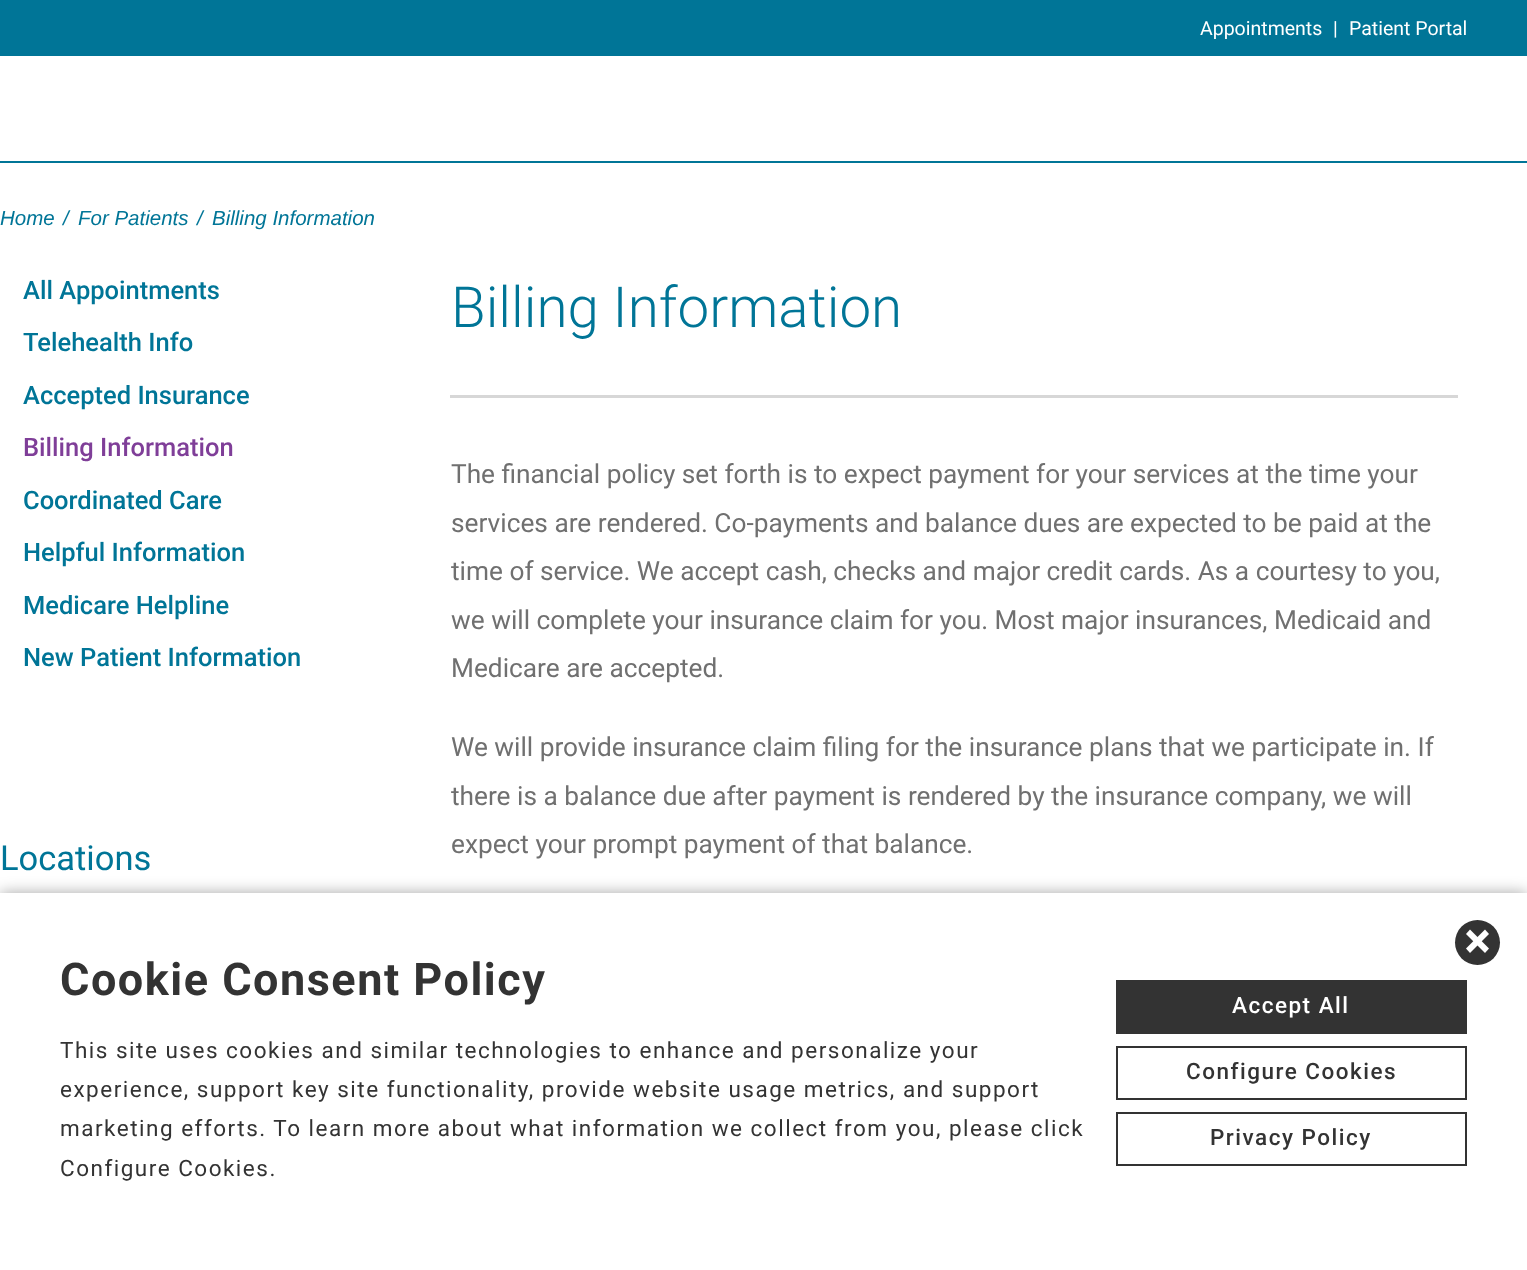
<svg xmlns="http://www.w3.org/2000/svg" width="1527" height="1270">
<rect width="100%" height="100%" fill="#fff"/>
<rect y="161" width="1527" height="2" fill="#007597"/>
<rect width="1527" height="56" fill="#007597"/>
<text x="1200" y="35" style="font-family:Roboto;font-size:19.5px;fill:#fff">Appointments</text>
<text x="1333" y="35" style="font-family:Roboto;font-size:19.5px;fill:#fff">|</text>
<text x="1349" y="35" style="font-family:Roboto;font-size:19.5px;fill:#fff">Patient Portal</text>
<text x="0" y="225" style="font-family:Liberation Sans;font-size:20.5px;font-style:italic;fill:#007597">Home</text>
<text x="63" y="225" style="font-family:Liberation Sans;font-size:20.5px;font-style:italic;fill:#007597">/</text>
<text x="78" y="225" style="font-family:Liberation Sans;font-size:20.5px;font-style:italic;fill:#007597">For Patients</text>
<text x="197" y="225" style="font-family:Liberation Sans;font-size:20.5px;font-style:italic;fill:#007597">/</text>
<text x="212" y="225" style="font-family:Liberation Sans;font-size:20.5px;font-style:italic;fill:#007597">Billing Information</text>
<text x="23" y="299" style="font-family:Roboto;font-size:25.5px;font-weight:500;fill:#007597">All Appointments</text>
<text x="23" y="351" style="font-family:Roboto;font-size:25.5px;font-weight:500;fill:#007597">Telehealth Info</text>
<text x="23" y="404" style="font-family:Roboto;font-size:25.5px;font-weight:500;fill:#007597">Accepted Insurance</text>
<text x="23" y="456" style="font-family:Roboto;font-size:25.5px;font-weight:500;fill:#7f3e98">Billing Information</text>
<text x="23" y="509" style="font-family:Roboto;font-size:25.5px;font-weight:500;fill:#007597">Coordinated Care</text>
<text x="23" y="561" style="font-family:Roboto;font-size:25.5px;font-weight:500;fill:#007597">Helpful Information</text>
<text x="23" y="614" style="font-family:Roboto;font-size:25.5px;font-weight:500;fill:#007597">Medicare Helpline</text>
<text x="23" y="666" style="font-family:Roboto;font-size:25.5px;font-weight:500;fill:#007597">New Patient Information</text>
<text x="0" y="870" style="font-family:Roboto;font-size:34.5px;fill:#007597">Locations</text>
<text x="451" y="327" style="font-family:Roboto;font-size:56.5px;font-weight:300;fill:#007597">Billing Information</text>
<rect x="450" y="395" width="1008" height="3" fill="#d7d7d7"/>
<text x="451" y="483" style="font-family:Roboto;font-size:26.25px;fill:#707070">The financial policy set forth is to expect payment for your services at the time your</text>
<text x="451" y="532" style="font-family:Roboto;font-size:26.25px;fill:#707070">services are rendered. Co-payments and balance dues are expected to be paid at the</text>
<text x="451" y="580" style="font-family:Roboto;font-size:26.25px;fill:#707070">time of service. We accept cash, checks and major credit cards. As a courtesy to you,</text>
<text x="451" y="629" style="font-family:Roboto;font-size:26.25px;fill:#707070">we will complete your insurance claim for you. Most major insurances, Medicaid and</text>
<text x="451" y="677" style="font-family:Roboto;font-size:26.25px;fill:#707070">Medicare are accepted.</text>
<text x="451" y="756" style="font-family:Roboto;font-size:26.25px;fill:#707070">We will provide insurance claim filing for the insurance plans that we participate in. If</text>
<text x="451" y="805" style="font-family:Roboto;font-size:26.25px;fill:#707070">there is a balance due after payment is rendered by the insurance company, we will</text>
<text x="451" y="853" style="font-family:Roboto;font-size:26.25px;fill:#707070">expect your prompt payment of that balance.</text>
<rect y="893" width="1527" height="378" fill="#00000059" filter="blur(7.5px)"/>
<rect y="893" width="1527" height="377" fill="#fff"/>
<circle cx="1477.5" cy="942.5" r="22.5" fill="#333"/>
<path d="M1466 934l4-4.5l19 19l-4 4.5z" fill="#fff"/>
<path d="M1485 929.5l4 4.5l-19 19l-4-4.5z" fill="#fff"/>
<text x="60" y="995" style="font-family:Roboto;font-size:45px;font-weight:bold;letter-spacing:1.5px;fill:#333">Cookie Consent Policy</text>
<text x="60" y="1058" style="font-family:Roboto;font-size:22.5px;letter-spacing:1.5px;fill:#333">This site uses cookies and similar technologies to enhance and personalize your</text>
<text x="60" y="1097" style="font-family:Roboto;font-size:22.5px;letter-spacing:1.5px;fill:#333">experience, support key site functionality, provide website usage metrics, and support</text>
<text x="60" y="1136" style="font-family:Roboto;font-size:22.5px;letter-spacing:1.5px;fill:#333">marketing efforts. To learn more about what information we collect from you, please click</text>
<text x="60" y="1176" style="font-family:Roboto;font-size:22.5px;letter-spacing:1.5px;fill:#333">Configure Cookies.</text>
<rect x="1116" y="980" width="351" height="54" fill="#333"/>
<text x="1232" y="1013" style="font-family:Roboto;font-size:22.5px;font-weight:500;letter-spacing:1.5px;fill:#fff">Accept All</text>
<rect x="1117" y="1047" width="349" height="52" fill="none" stroke="#333" stroke-width="2"/>
<text x="1186" y="1079" style="font-family:Roboto;font-size:22.5px;font-weight:500;letter-spacing:1.5px;fill:#333">Configure Cookies</text>
<rect x="1117" y="1113" width="349" height="52" fill="none" stroke="#333" stroke-width="2"/>
<text x="1210" y="1145" style="font-family:Roboto;font-size:22.5px;font-weight:500;letter-spacing:1.5px;fill:#333">Privacy Policy</text>
</svg>
